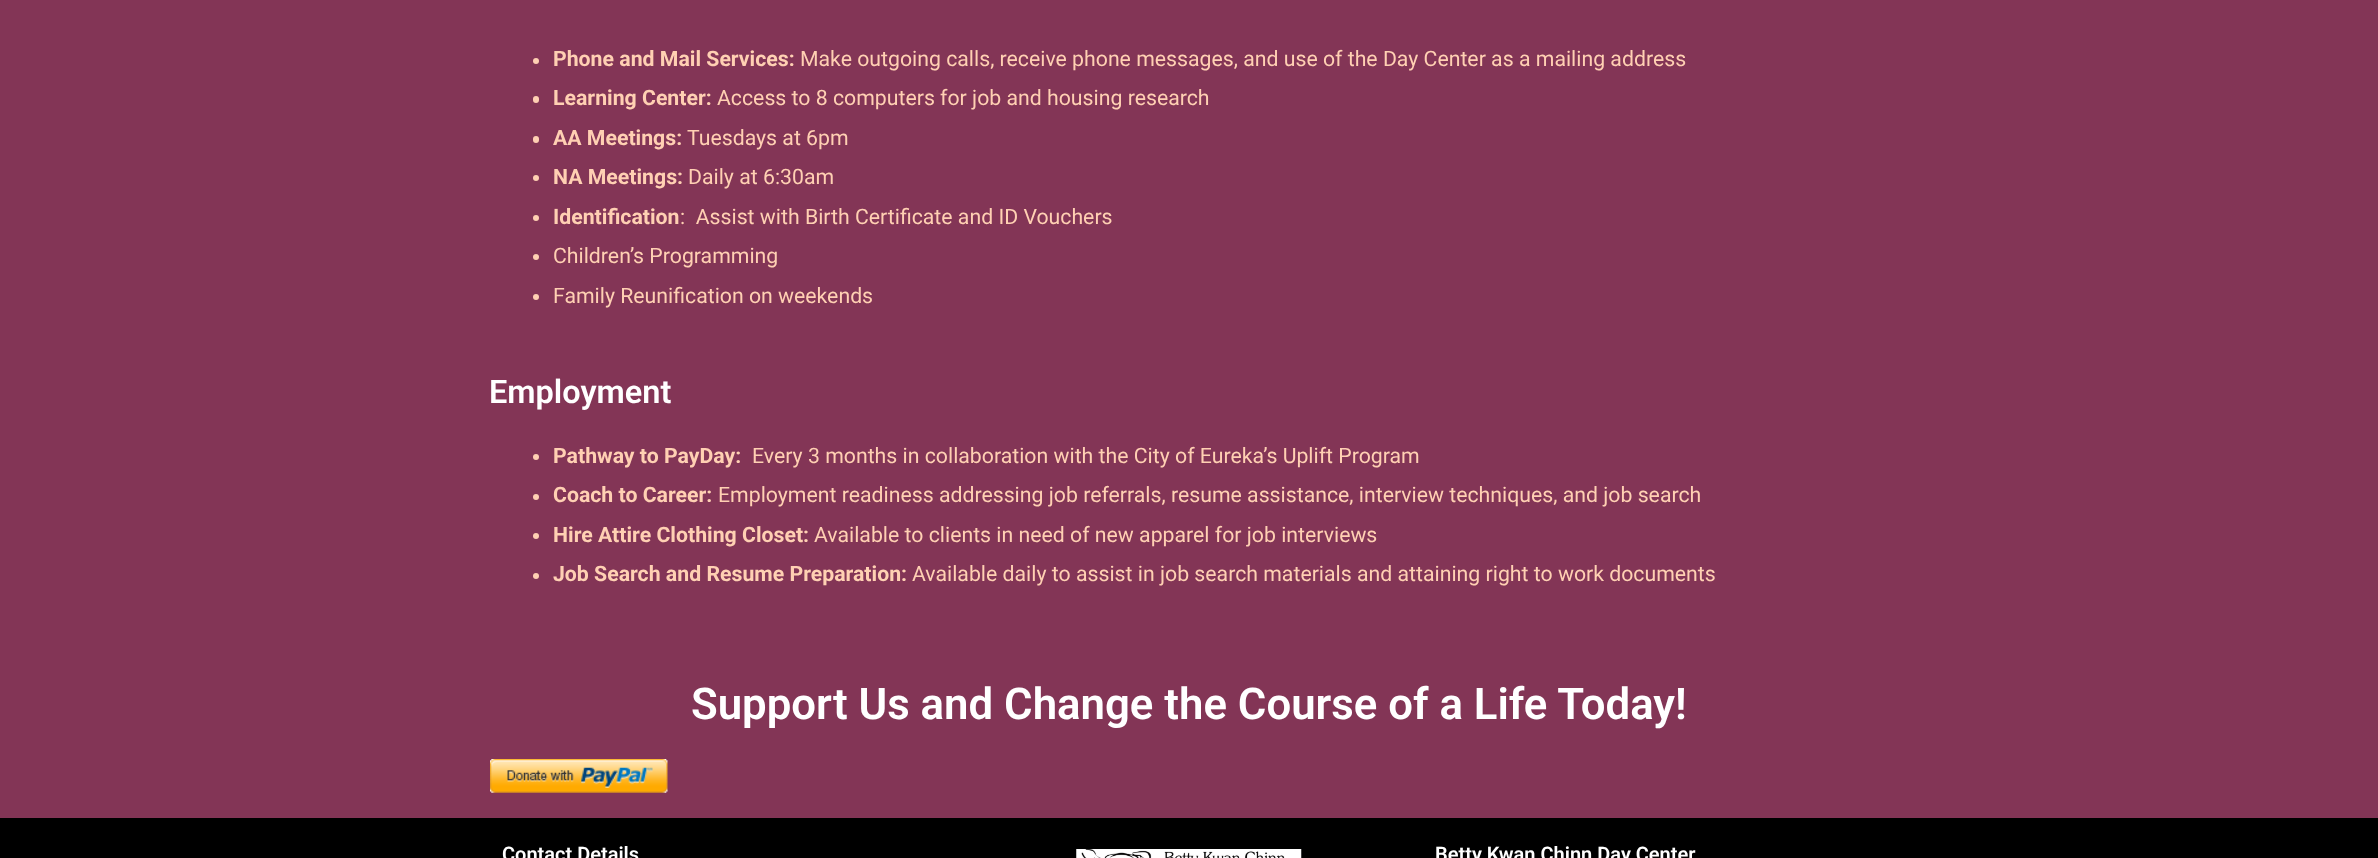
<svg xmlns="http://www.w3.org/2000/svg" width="2378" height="858">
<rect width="100%" height="100%" fill="#833556"/>
<circle cx="536" cy="61" r="3" fill="#ffd0b3"/>
<text x="553" y="66" style="font-family:Roboto;font-size:21.25px;font-weight:bold;fill:#ffd0b3">Phone and Mail Services:</text>
<text x="800" y="66" style="font-family:Roboto;font-size:21.25px;fill:#ffd0b3">Make outgoing calls, receive phone messages, and use of the Day Center as a mailing address</text>
<rect x="533" y="96" width="6" height="7" rx="3" fill="#ffd0b3"/>
<text x="553" y="105" style="font-family:Roboto;font-size:21.25px;font-weight:bold;fill:#ffd0b3">Learning Center:</text>
<text x="717" y="105" style="font-family:Roboto;font-size:21.25px;fill:#ffd0b3">Access to 8 computers for job and housing research</text>
<rect x="533" y="136" width="6" height="7" rx="3" fill="#ffd0b3"/>
<text x="553" y="145" style="font-family:Roboto;font-size:21.25px;font-weight:bold;fill:#ffd0b3">AA Meetings:</text>
<text x="687" y="145" style="font-family:Roboto;font-size:21.25px;fill:#ffd0b3">Tuesdays at 6pm</text>
<circle cx="536" cy="178" r="3" fill="#ffd0b3"/>
<text x="553" y="184" style="font-family:Roboto;font-size:21.25px;font-weight:bold;fill:#ffd0b3">NA Meetings:</text>
<text x="688" y="184" style="font-family:Roboto;font-size:21.25px;fill:#ffd0b3">Daily at 6:30am</text>
<circle cx="536" cy="218" r="3" fill="#ffd0b3"/>
<text x="553" y="224" style="font-family:Roboto;font-size:21.25px;font-weight:bold;fill:#ffd0b3">Identification</text>
<text x="680" y="224" style="font-family:Roboto;font-size:21.25px;fill:#ffd0b3" xml:space="preserve">:  Assist with Birth Certificate and ID Vouchers</text>
<circle cx="536" cy="257" r="3" fill="#ffd0b3"/>
<text x="553" y="263" style="font-family:Roboto;font-size:21.25px;fill:#ffd0b3">Children’s Programming</text>
<circle cx="536" cy="297" r="3" fill="#ffd0b3"/>
<text x="553" y="303" style="font-family:Roboto;font-size:21.25px;fill:#ffd0b3">Family Reunification on weekends</text>
<text x="489" y="403" style="font-family:Roboto;font-size:32.5px;font-weight:600;fill:#fff">Employment</text>
<circle cx="536" cy="457" r="3" fill="#ffd0b3"/>
<text x="553" y="463" style="font-family:Roboto;font-size:21.25px;font-weight:bold;fill:#ffd0b3">Pathway to PayDay:</text>
<text x="752" y="463" style="font-family:Roboto;font-size:21.25px;fill:#ffd0b3">Every 3 months in collaboration with the City of Eureka’s Uplift Program</text>
<circle cx="536" cy="497" r="3" fill="#ffd0b3"/>
<text x="553" y="502" style="font-family:Roboto;font-size:21.25px;font-weight:bold;fill:#ffd0b3">Coach to Career:</text>
<text x="718" y="502" style="font-family:Roboto;font-size:21.25px;fill:#ffd0b3">Employment readiness addressing job referrals, resume assistance, interview techniques, and job search</text>
<circle cx="536" cy="536" r="3" fill="#ffd0b3"/>
<text x="553" y="542" style="font-family:Roboto;font-size:21.25px;font-weight:bold;fill:#ffd0b3">Hire Attire Clothing Closet:</text>
<text x="814" y="542" style="font-family:Roboto;font-size:21.25px;fill:#ffd0b3">Available to clients in need of new apparel for job interviews</text>
<circle cx="536" cy="576" r="3" fill="#ffd0b3"/>
<text x="553" y="581" style="font-family:Roboto;font-size:21.25px;font-weight:bold;fill:#ffd0b3">Job Search and Resume Preparation:</text>
<text x="912" y="581" style="font-family:Roboto;font-size:21.25px;fill:#ffd0b3">Available daily to assist in job search materials and attaining right to work documents</text>
<text x="691" y="719" style="font-family:Roboto;font-size:43.75px;font-weight:600;fill:#fff">Support Us and Change the Course of a Life Today!</text>
<image x="490" y="759" width="178" height="34" href="media/1.png"/>
<rect y="818" width="2378" height="40" fill="#000"/>
<text x="502" y="861" style="font-family:Roboto;font-size:20px;font-weight:600;fill:#fff">Contact Details</text>
<image x="1076" y="849" width="226" height="9" href="media/2.png"/>
<text x="1435" y="861" style="font-family:Roboto;font-size:20px;font-weight:600;fill:#fff">Betty Kwan Chinn Day Center</text>
</svg>
